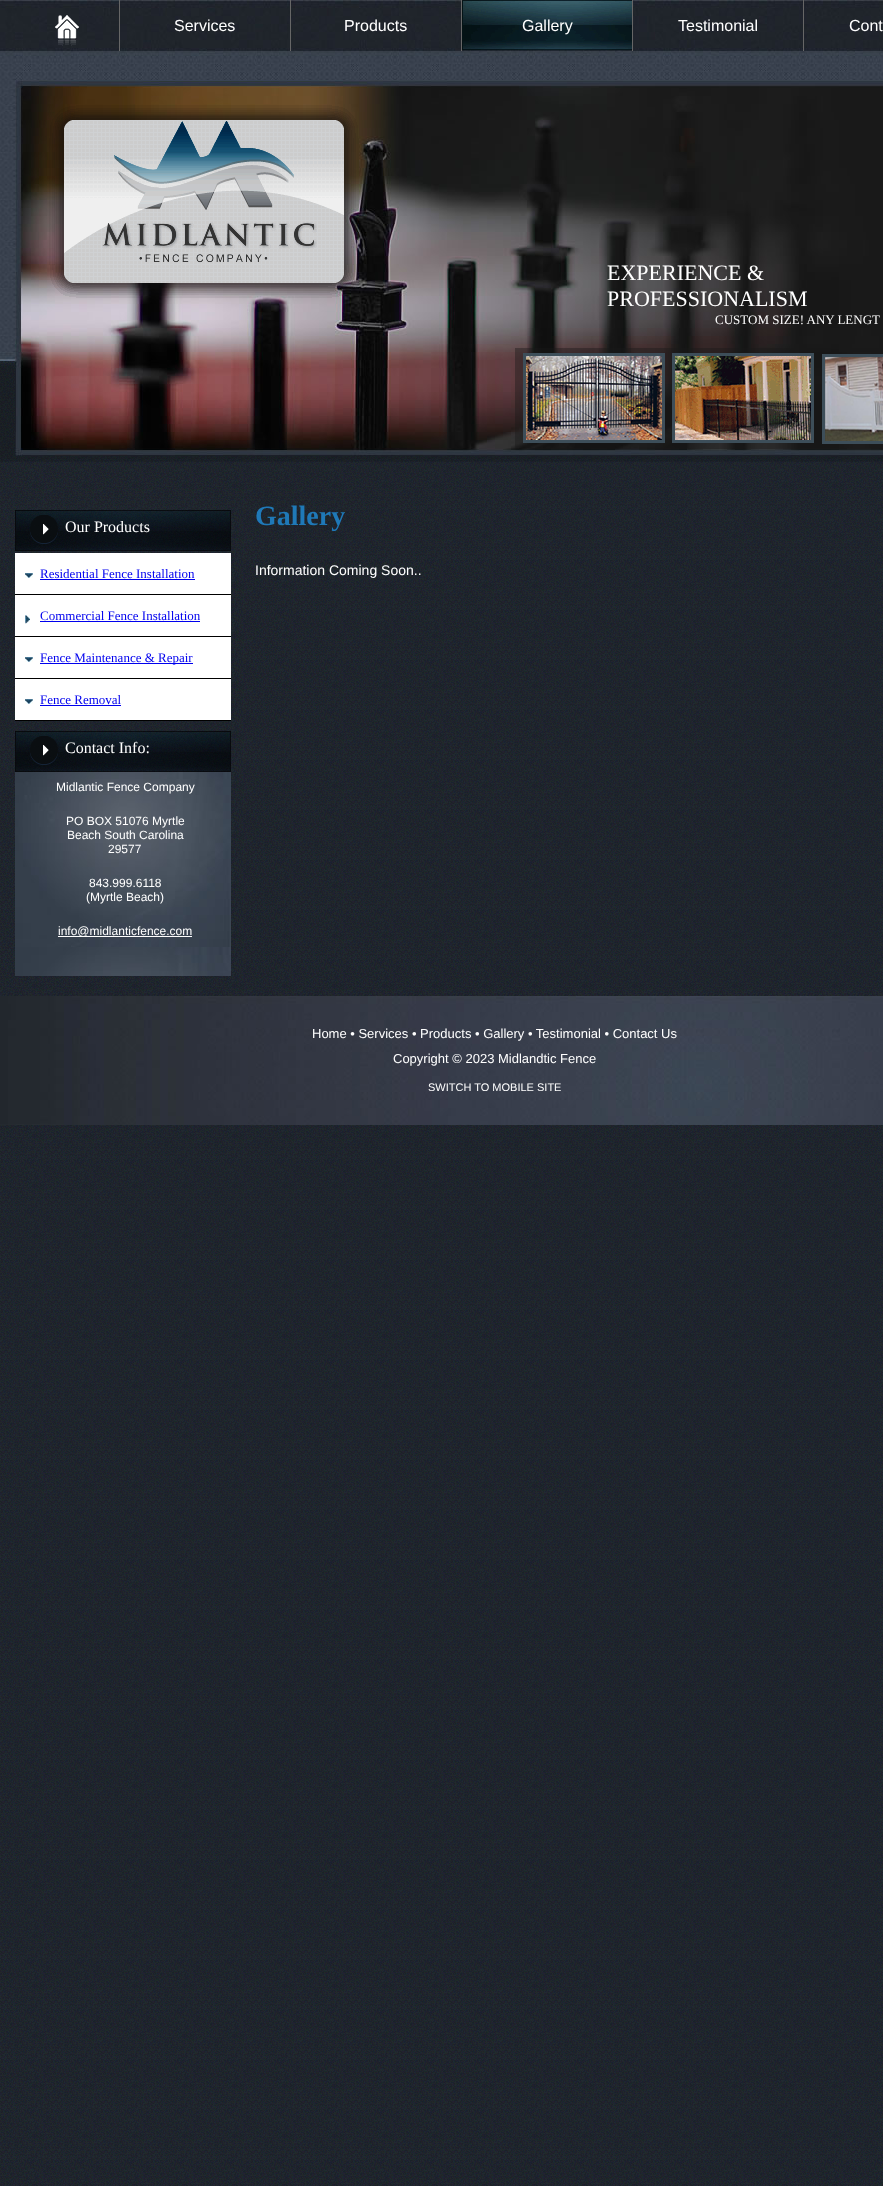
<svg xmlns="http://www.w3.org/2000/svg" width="883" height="2186">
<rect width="100%" height="100%" fill="#fff"/>
<image x="0" y="361" width="883" height="1825" href="media/1.png"/>
<image x="0" y="0" width="15" height="361" href="media/2.png"/>
<image x="0" y="363" width="883" height="99" href="media/3.png"/>
<image x="15" y="0" width="868" height="456" href="media/4.png"/>
<rect x="119" width="1" height="51" fill="#666"/>
<image x="55" y="15" width="24" height="31" href="media/5.png"/>
<rect x="290" width="1" height="51" fill="#666"/>
<text x="174" y="31" style="font-family:Liberation Sans;font-size:16px;fill:#fff">Services</text>
<rect x="461" width="1" height="51" fill="#666"/>
<text x="344" y="31" style="font-family:Liberation Sans;font-size:16px;fill:#fff">Products</text>
<rect x="632" width="1" height="51" fill="#666"/>
<image x="462" y="0" width="170" height="50" href="media/6.png"/>
<text x="522" y="31" style="font-family:Liberation Sans;font-size:16px;fill:#fff">Gallery</text>
<rect x="803" width="1" height="51" fill="#666"/>
<text x="678" y="31" style="font-family:Liberation Sans;font-size:16px;fill:#fff">Testimonial</text>
<text x="849" y="31" style="font-family:Liberation Sans;font-size:16px;fill:#fff">Cont</text>
<image x="49" y="105" width="310" height="193" href="media/7.png"/>
<text x="607" y="280" style="font-family:Liberation Serif;font-size:22px;fill:#fff">EXPERIENCE &amp;</text>
<text x="607" y="306" style="font-family:Liberation Serif;font-size:22px;fill:#fff">PROFESSIONALISM</text>
<text x="715" y="324" style="font-family:Liberation Serif;font-size:13px;fill:#fff">CUSTOM SIZE! ANY LENGT</text>
<image x="515" y="348" width="368" height="101" href="media/8.png"/>
<image x="15" y="510" width="216" height="41" href="media/9.png"/>
<text x="65" y="532" style="font-family:Liberation Serif;font-size:16px;fill:#fff">Our Products</text>
<rect x="15" y="553" width="216" height="167" fill="#fff"/>
<image x="25" y="573" width="8" height="5" href="media/10.png"/>
<rect x="15" y="594" width="216" height="1" fill="#000"/>
<text x="40" y="578" style="font-family:Liberation Serif;font-size:13px;fill:#00e">Residential Fence Installation</text>
<rect x="40" y="579" width="155" height="1" fill="#00e"/>
<image x="25" y="615" width="5" height="9" href="media/11.png"/>
<rect x="15" y="636" width="216" height="1" fill="#000"/>
<text x="40" y="620" style="font-family:Liberation Serif;font-size:13px;fill:#00e">Commercial Fence Installation</text>
<rect x="40" y="621" width="160" height="1" fill="#00e"/>
<image x="25" y="657" width="8" height="5" href="media/10.png"/>
<rect x="15" y="678" width="216" height="1" fill="#000"/>
<rect x="40" y="663" width="153" height="1" fill="#00e"/>
<text x="40" y="662" style="font-family:Liberation Serif;font-size:13px;fill:#00e">Fence Maintenance &amp; Repair</text>
<image x="25" y="699" width="8" height="5" href="media/10.png"/>
<rect x="15" y="720" width="216" height="1" fill="#000"/>
<text x="40" y="704" style="font-family:Liberation Serif;font-size:13px;fill:#00e">Fence Removal</text>
<rect x="40" y="705" width="81" height="1" fill="#00e"/>
<image x="15" y="772" width="216" height="204" href="media/12.png"/>
<image x="15" y="731" width="216" height="41" href="media/9.png"/>
<text x="65" y="753" style="font-family:Liberation Serif;font-size:16px;fill:#fff">Contact Info:</text>
<text x="56" y="791" style="font-family:Liberation Sans;font-size:12px;fill:#fff">Midlantic Fence Company</text>
<text x="66" y="825" style="font-family:Liberation Sans;font-size:12px;fill:#fff">PO BOX 51076 Myrtle</text>
<text x="67" y="839" style="font-family:Liberation Sans;font-size:12px;fill:#fff">Beach South Carolina</text>
<text x="108" y="853" style="font-family:Liberation Sans;font-size:12px;fill:#fff">29577</text>
<text x="89" y="887" style="font-family:Liberation Sans;font-size:12px;fill:#fff">843.999.6118</text>
<text x="86" y="901" style="font-family:Liberation Sans;font-size:12px;fill:#fff">(Myrtle Beach)</text>
<rect x="58" y="936" width="134" height="1" fill="#fff"/>
<text x="58" y="935" style="font-family:Liberation Sans;font-size:12px;fill:#fff">info@midlanticfence.com</text>
<text x="255" y="525" style="font-family:Liberation Serif;font-size:28px;font-weight:bold;fill:#1f79b8">Gallery</text>
<text x="255" y="575" style="font-family:Liberation Sans;font-size:14px;fill:#fff">Information Coming Soon..</text>
<image x="0" y="996" width="883" height="129" href="media/13.png"/>
<text x="312" y="1038" style="font-family:Liberation Sans;font-size:13px;fill:#fff">Home • Services • Products • Gallery • Testimonial • Contact Us</text>
<text x="393" y="1063" style="font-family:Liberation Sans;font-size:13px;fill:#fff">Copyright © 2023 Midlandtic Fence</text>
<text x="428" y="1091" style="font-family:Liberation Sans;font-size:11px;fill:#fff">SWITCH TO MOBILE SITE</text>
</svg>
